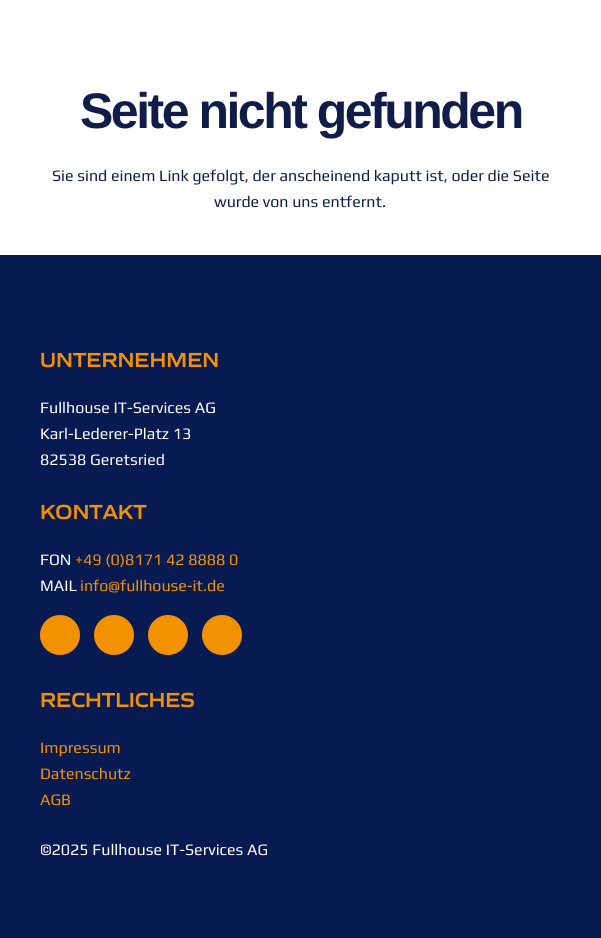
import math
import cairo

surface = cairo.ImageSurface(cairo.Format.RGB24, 601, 938)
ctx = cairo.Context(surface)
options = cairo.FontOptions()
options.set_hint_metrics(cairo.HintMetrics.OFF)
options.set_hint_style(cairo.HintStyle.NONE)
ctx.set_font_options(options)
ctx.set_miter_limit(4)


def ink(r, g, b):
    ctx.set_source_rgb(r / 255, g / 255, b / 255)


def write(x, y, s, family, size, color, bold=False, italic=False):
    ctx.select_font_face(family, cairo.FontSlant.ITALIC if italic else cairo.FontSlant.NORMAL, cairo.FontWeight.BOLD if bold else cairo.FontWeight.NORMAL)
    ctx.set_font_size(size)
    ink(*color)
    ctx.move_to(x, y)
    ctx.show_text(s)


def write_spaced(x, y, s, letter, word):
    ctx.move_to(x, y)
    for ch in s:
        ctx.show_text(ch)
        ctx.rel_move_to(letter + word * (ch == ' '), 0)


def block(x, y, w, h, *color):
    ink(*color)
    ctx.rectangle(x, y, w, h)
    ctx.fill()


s1 = dict(family="Play", size=16, color=(15, 29, 72))
s2 = dict(family="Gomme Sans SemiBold", size=21, color=(243, 146, 0))
s3 = dict(family="Play", size=16, color=(255, 255, 255))
s4 = dict(family="Play", size=16, color=(243, 146, 0))

ink(255, 255, 255)
ctx.paint()
ctx.select_font_face("Liberation Sans", cairo.FontSlant.NORMAL, cairo.FontWeight.BOLD)
ctx.set_font_size(50)
ink(15, 29, 72)
write_spaced(80, 128, "Seite nicht gefunden", -2.5, 0)
write(52, 181, "Sie sind einem Link gefolgt, der anscheinend kaputt ist, oder die Seite", **s1)
write(214, 207, "wurde von uns entfernt.", **s1)
block(0, 255, 601, 683, 7, 26, 82)
write(40, 367, "UNTERNEHMEN", **s2)
write(40, 413, "Fullhouse IT-Services AG", **s3)
write(40, 439, "Karl-Lederer-Platz 13", **s3)
write(40, 465, "82538 Geretsried", **s3)
write(40, 519, "KONTAKT", **s2)
write(40, 565, "FON", **s3)
write(75, 565, "+49 (0)8171 42 8888 0", **s4)
write(40, 591, "MAIL", **s3)
write(80, 591, "info@fullhouse-it.de", **s4)
ctx.new_path()
ctx.arc(60, 635, 20, 0, 2 * math.pi)
ctx.fill()
ctx.arc(114, 635, 20, 0, 2 * math.pi)
ctx.fill()
ctx.arc(168, 635, 20, 0, 2 * math.pi)
ctx.fill()
ctx.arc(222, 635, 20, 0, 2 * math.pi)
ctx.fill()
write(40, 707, "RECHTLICHES", **s2)
write(40, 753, "Impressum", **s4)
write(40, 779, "Datenschutz", **s4)
write(40, 805, "AGB", **s4)
write(40, 855, "©2025 Fullhouse IT-Services AG", **s3)
surface.write_to_png("screenshot.png")
